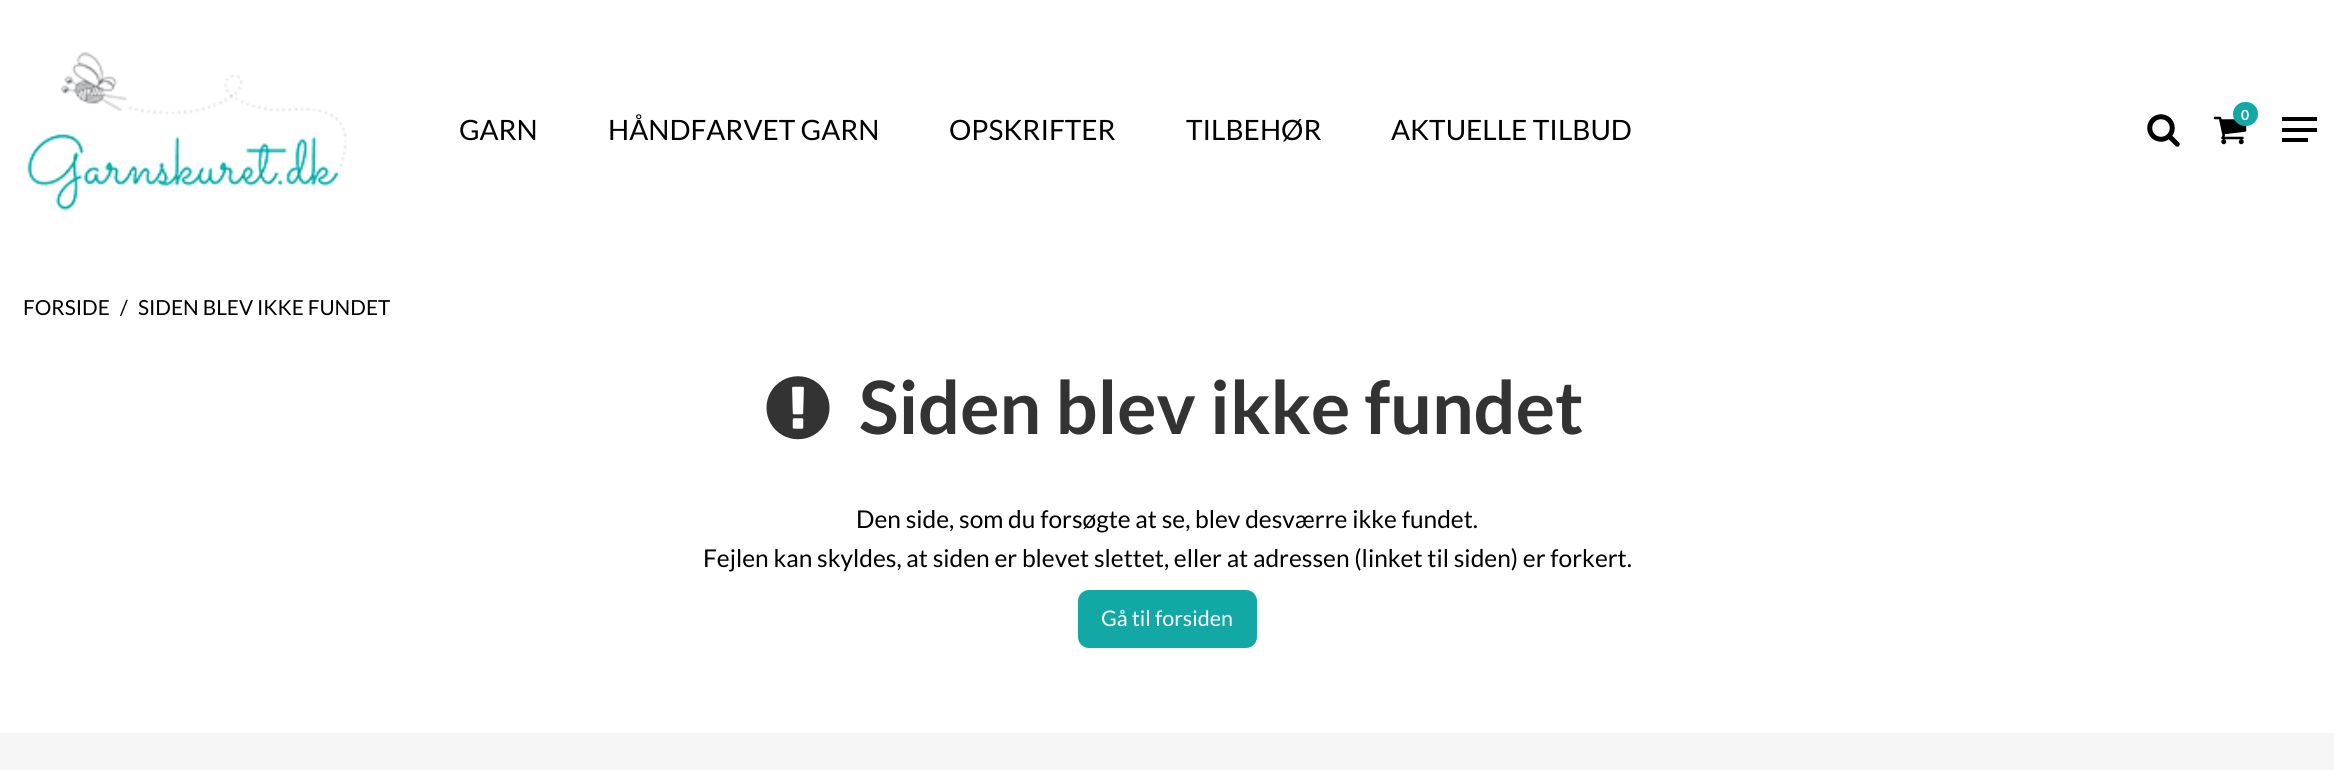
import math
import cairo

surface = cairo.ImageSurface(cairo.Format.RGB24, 2334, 770)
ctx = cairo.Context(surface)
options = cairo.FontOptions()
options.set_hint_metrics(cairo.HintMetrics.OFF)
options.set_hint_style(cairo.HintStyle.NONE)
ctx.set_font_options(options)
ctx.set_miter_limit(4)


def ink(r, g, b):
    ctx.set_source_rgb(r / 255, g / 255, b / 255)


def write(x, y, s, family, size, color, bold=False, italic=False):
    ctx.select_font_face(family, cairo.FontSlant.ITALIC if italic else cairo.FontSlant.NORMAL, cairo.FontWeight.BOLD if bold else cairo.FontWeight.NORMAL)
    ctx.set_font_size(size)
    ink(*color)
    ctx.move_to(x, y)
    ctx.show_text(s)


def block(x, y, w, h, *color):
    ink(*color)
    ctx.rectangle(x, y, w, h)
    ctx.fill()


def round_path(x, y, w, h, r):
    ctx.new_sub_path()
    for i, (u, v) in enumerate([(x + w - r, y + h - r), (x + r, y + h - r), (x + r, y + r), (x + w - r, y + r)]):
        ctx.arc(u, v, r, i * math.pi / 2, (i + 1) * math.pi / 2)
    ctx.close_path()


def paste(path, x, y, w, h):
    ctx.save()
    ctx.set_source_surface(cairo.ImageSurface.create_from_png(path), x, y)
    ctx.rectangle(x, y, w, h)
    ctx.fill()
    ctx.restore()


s1 = dict(family="Lato", size=28, color=(0, 0, 0))
s2 = dict(family="Lato", size=14, color=(255, 255, 255), bold=True)
s3 = dict(family="Lato", size=20.75, color=(0, 0, 0))
s4 = dict(family="Lato", size=73.5, color=(51, 51, 51), bold=True)
s5 = dict(family="Lato", size=24.5, color=(0, 0, 0))
s6 = dict(family="Lato", size=21.5, color=(255, 255, 255))

ink(255, 255, 255)
ctx.paint()
paste("pic1.png", 27, 52, 320, 159)
write(459, 140, "GARN", **s1)
write(608, 140, "HÅNDFARVET GARN", **s1)
write(949, 140, "OPSKRIFTER", **s1)
write(1186, 140, "TILBEHØR", **s1)
write(1391, 140, "AKTUELLE TILBUD", **s1)
paste("pic2.png", 2147, 114, 33, 33)
paste("pic3.png", 2213, 116, 34, 29)
ink(18, 168, 166)
round_path(2233, 102, 25, 24, 12)
ctx.fill()
write(2241, 120, "0", **s2)
block(2282, 117, 35, 4, 0, 0, 0)
block(2282, 128, 35, 4, 0, 0, 0)
block(2282, 138, 26, 4, 0, 0, 0)
write(23, 315, "FORSIDE", **s3)
write(120, 315, "/", **s3)
write(138, 315, "SIDEN BLEV IKKE FUNDET", **s3)
paste("pic4.png", 766, 376, 64, 64)
write(859, 434, "Siden blev ikke fundet", **s4)
write(856, 528, "Den side, som du forsøgte at se, blev desværre ikke fundet.", **s5)
write(703, 567, "Fejlen kan skyldes, at siden er blevet slettet, eller at adressen (linket til siden) er forkert.", **s5)
ink(18, 168, 166)
round_path(1079, 591, 177, 56, 10)
ctx.fill_preserve()
ctx.stroke()
write(1101, 626, "Gå til forsiden", **s6)
block(0, 733, 2334, 37, 245, 245, 245)
surface.write_to_png("screenshot.png")
